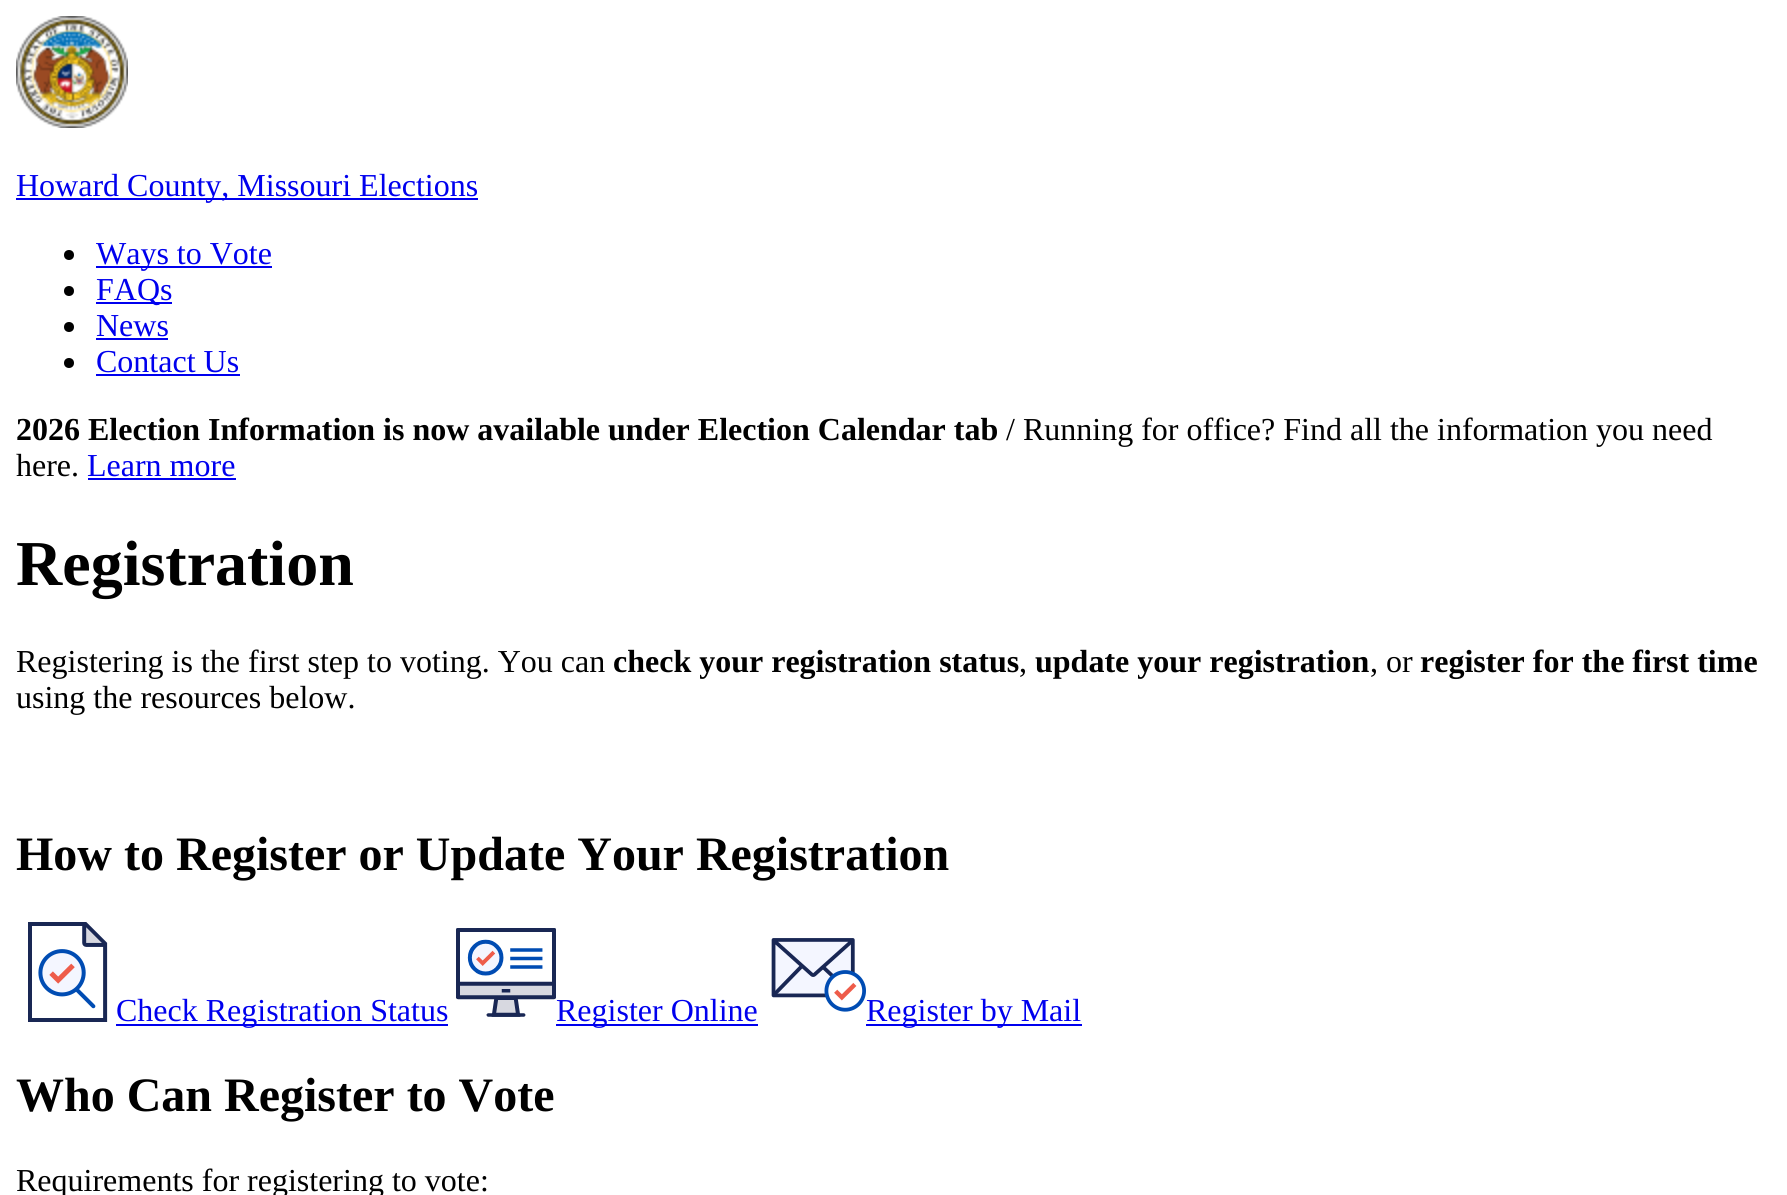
import math
import cairo

surface = cairo.ImageSurface(cairo.Format.RGB24, 1787, 1195)
ctx = cairo.Context(surface)
options = cairo.FontOptions()
options.set_hint_metrics(cairo.HintMetrics.OFF)
options.set_hint_style(cairo.HintStyle.NONE)
ctx.set_font_options(options)
ctx.set_miter_limit(4)


def ink(r, g, b):
    ctx.set_source_rgb(r / 255, g / 255, b / 255)


def write(x, y, s, family, size, color, bold=False, italic=False):
    ctx.select_font_face(family, cairo.FontSlant.ITALIC if italic else cairo.FontSlant.NORMAL, cairo.FontWeight.BOLD if bold else cairo.FontWeight.NORMAL)
    ctx.set_font_size(size)
    ink(*color)
    ctx.move_to(x, y)
    ctx.show_text(s)


def block(x, y, w, h, *color):
    ink(*color)
    ctx.rectangle(x, y, w, h)
    ctx.fill()


def paste(path, x, y, w, h):
    ctx.save()
    ctx.set_source_surface(cairo.ImageSurface.create_from_png(path), x, y)
    ctx.rectangle(x, y, w, h)
    ctx.fill()
    ctx.restore()


s1 = dict(family="Liberation Serif", size=32, color=(0, 0, 238))
s2 = dict(family="Liberation Serif", size=32, color=(0, 0, 0), bold=True)
s3 = dict(family="Liberation Serif", size=32, color=(0, 0, 0))
s4 = dict(family="Liberation Serif", size=64, color=(0, 0, 0), bold=True)
s5 = dict(family="Liberation Serif", size=48, color=(0, 0, 0), bold=True)

ink(255, 255, 255)
ctx.paint()
paste("pic1.png", 16, 16, 112, 112)
block(16, 198, 462, 2, 0, 0, 238)
write(16, 196, "Howard County, Missouri Elections", **s1)
ink(0, 0, 0)
ctx.new_path()
ctx.arc(69, 255, 5, 0, 2 * math.pi)
ctx.fill()
block(96, 266, 176, 2, 0, 0, 238)
write(96, 264, "Ways to Vote", **s1)
ink(0, 0, 0)
ctx.new_path()
ctx.arc(69, 291, 5, 0, 2 * math.pi)
ctx.fill()
block(96, 302, 76, 2, 0, 0, 238)
write(96, 300, "FAQs", **s1)
ink(0, 0, 0)
ctx.new_path()
ctx.arc(69, 327, 5, 0, 2 * math.pi)
ctx.fill()
write(96, 336, "News", **s1)
block(96, 338, 72, 2, 0, 0, 238)
ink(0, 0, 0)
ctx.new_path()
ctx.arc(69, 363, 5, 0, 2 * math.pi)
ctx.fill()
write(96, 372, "Contact Us", **s1)
block(96, 374, 144, 2, 0, 0, 238)
write(16, 440, "2026 Election Information is now available under Election Calendar tab", **s2)
write(1006, 440, "/ Running for office? Find all the information you need", **s3)
write(16, 476, "here.", **s3)
write(87, 476, "Learn more", **s1)
block(88, 478, 148, 2, 0, 0, 238)
write(16, 585, "Registration", **s4)
write(16, 672, "Registering is the first step to voting. You can", **s3)
write(613, 672, "check your registration status", **s2)
write(1019, 672, ",", **s3)
write(1035, 672, "update your registration", **s2)
write(1370, 672, ", or", **s3)
write(1420, 672, "register for the first time", **s2)
write(16, 708, "using the resources below.", **s3)
write(16, 870, "How to Register or Update Your Registration", **s5)
paste("pic2.png", 28, 922, 80, 100)
block(116, 1024, 332, 2, 0, 0, 238)
write(116, 1021, "Check Registration Status", **s1)
paste("pic3.png", 456, 928, 100, 89)
block(556, 1024, 202, 2, 0, 0, 238)
write(556, 1021, "Register Online", **s1)
paste("pic4.png", 771, 938, 95, 74)
block(866, 1024, 216, 2, 0, 0, 238)
write(866, 1021, "Register by Mail", **s1)
write(16, 1111, "Who Can Register to Vote", **s5)
write(16, 1191, "Requirements for registering to vote:", **s3)
surface.write_to_png("screenshot.png")
